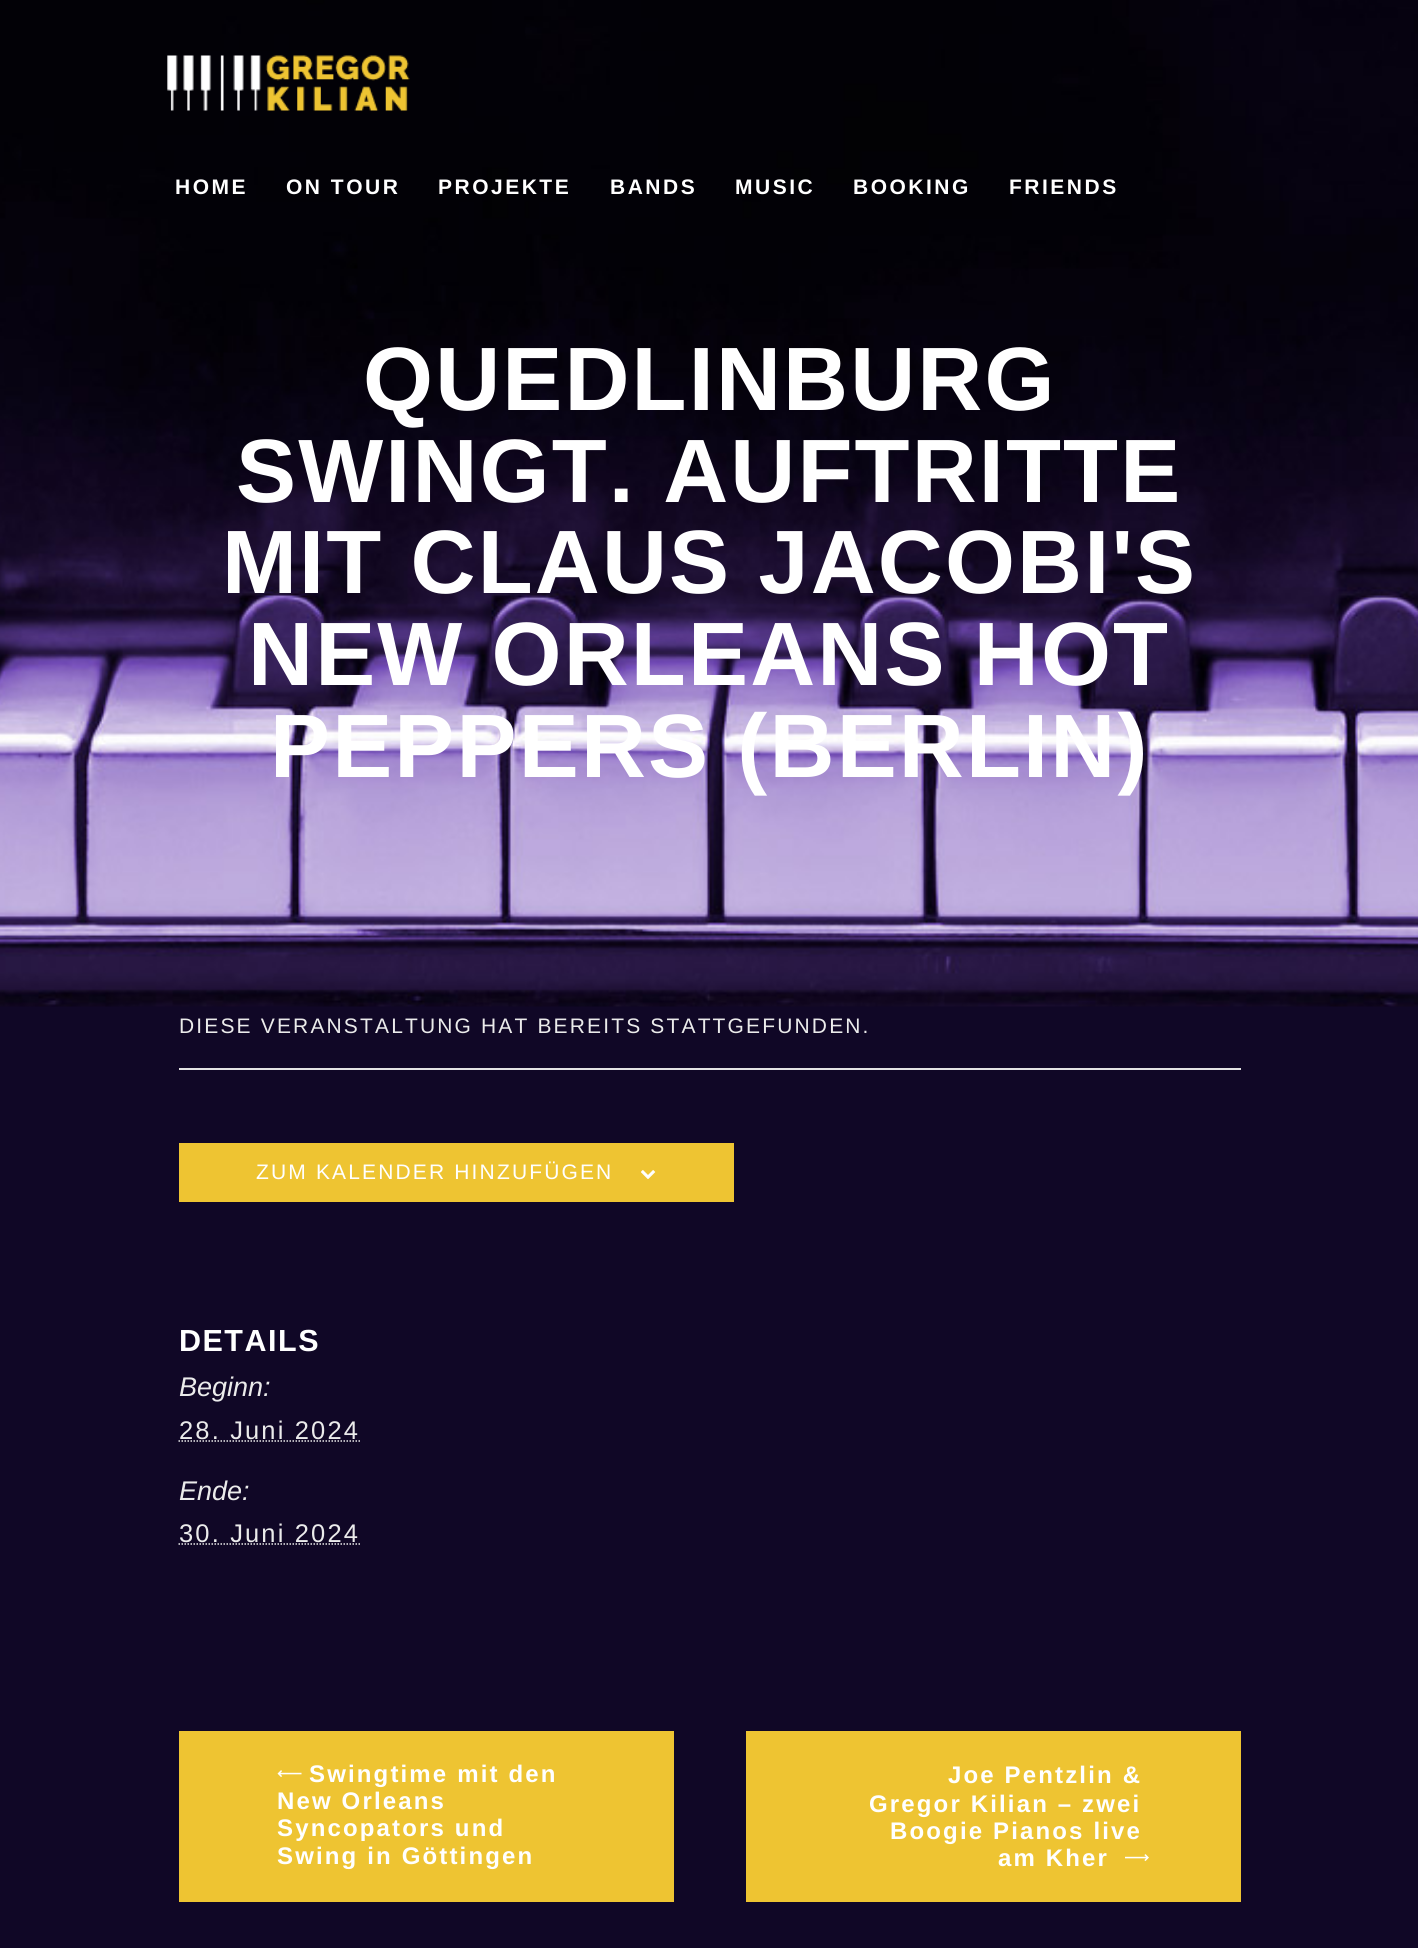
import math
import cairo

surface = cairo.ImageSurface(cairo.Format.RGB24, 1418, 1948)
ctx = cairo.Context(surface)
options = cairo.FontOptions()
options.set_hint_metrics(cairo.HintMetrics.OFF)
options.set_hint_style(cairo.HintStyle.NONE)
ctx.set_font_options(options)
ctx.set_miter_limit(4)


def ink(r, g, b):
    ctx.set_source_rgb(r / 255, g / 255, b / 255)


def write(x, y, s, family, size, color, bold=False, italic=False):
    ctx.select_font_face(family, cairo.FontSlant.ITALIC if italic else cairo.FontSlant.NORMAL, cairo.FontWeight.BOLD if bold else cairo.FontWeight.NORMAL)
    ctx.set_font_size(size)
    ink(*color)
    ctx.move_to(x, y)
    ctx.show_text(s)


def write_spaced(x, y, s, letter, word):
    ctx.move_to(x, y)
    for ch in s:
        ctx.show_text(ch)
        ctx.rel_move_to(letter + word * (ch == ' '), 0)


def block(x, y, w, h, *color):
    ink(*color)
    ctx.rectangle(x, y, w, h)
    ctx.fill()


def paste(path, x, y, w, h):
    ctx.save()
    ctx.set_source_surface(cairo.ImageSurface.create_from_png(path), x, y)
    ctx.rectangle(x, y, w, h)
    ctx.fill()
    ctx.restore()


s1 = dict(family="Liberation Sans", size=27, color=(235, 235, 235), italic=True)

ink(16, 7, 38)
ctx.paint()
paste("pic1.png", 0, 0, 1418, 1007)
paste("pic2.png", 167, 55, 243, 56)
ctx.select_font_face("Liberation Sans", cairo.FontSlant.NORMAL, cairo.FontWeight.BOLD)
ctx.set_font_size(21)
ink(255, 255, 255)
write_spaced(175, 194, "HOME", 2.5, 0)
write_spaced(286, 194, "ON TOUR", 2.5, 0)
write_spaced(438, 194, "PROJEKTE", 2.5, 0)
write_spaced(610, 194, "BANDS", 2.5, 0)
write_spaced(735, 194, "MUSIC", 2.5, 0)
write_spaced(853, 194, "BOOKING", 2.5, 0)
write_spaced(1009, 194, "FRIENDS", 2.5, 0)
ctx.set_font_size(90)
write_spaced(363, 410, "QUEDLINBURG", 2.15, 0)
write_spaced(236, 502, "SWINGT. AUFTRITTE", 2.15, 0)
write_spaced(222, 593, "MIT CLAUS JACOBI'S", 2.15, 0)
write_spaced(248, 685, "NEW ORLEANS HOT", 2.15, 0)
write_spaced(270, 777, "PEPPERS (BERLIN)", 2.15, 0)
block(179, 1068, 1062, 2, 228, 228, 228)
ctx.select_font_face("Liberation Sans")
ctx.set_font_size(21)
ink(235, 235, 235)
write_spaced(179, 1033, "DIESE VERANSTALTUNG HAT BEREITS STATTGEFUNDEN.", 2.15, 0)
block(179, 1143, 555, 59, 238, 196, 50)
ink(255, 255, 255)
write_spaced(256, 1179, "ZUM KALENDER HINZUFÜGEN", 2.15, 0)
paste("pic3.png", 641, 1170, 15, 9)
ctx.select_font_face("Liberation Sans", cairo.FontSlant.NORMAL, cairo.FontWeight.BOLD)
ctx.set_font_size(30.5)
write_spaced(179, 1351, "DETAILS", 1.5, 0)
write(179, 1396, "Beginn:", **s1)
ctx.select_font_face("Liberation Sans")
ctx.set_font_size(25.5)
write_spaced(179, 1439, "28. Juni 2024", 2.15, 0)
ctx.new_path()
ctx.move_to(178.5, 1441)
ctx.line_to(360, 1441)
ctx.set_line_width(1.5)
ctx.set_dash([1.5, 1.5])
ctx.stroke()
write(179, 1500, "Ende:", **s1)
ctx.select_font_face("Liberation Sans")
ctx.set_font_size(25.5)
write_spaced(179, 1542, "30. Juni 2024", 2.15, 0)
ctx.new_path()
ctx.move_to(178.5, 1544)
ctx.line_to(360, 1544)
ctx.stroke()
block(179, 1731, 495, 171, 238, 196, 50)
paste("pic4.png", 277, 1770, 25, 7)
ctx.select_font_face("Liberation Sans", cairo.FontSlant.NORMAL, cairo.FontWeight.BOLD)
ctx.set_font_size(24)
ink(255, 255, 255)
write_spaced(309, 1782, "Swingtime mit den", 2.15, 0)
write_spaced(277, 1809, "New Orleans", 2.15, 0)
write_spaced(277, 1836, "Syncopators und", 2.15, 0)
write_spaced(277, 1864, "Swing in Göttingen", 2.15, 0)
block(746, 1731, 495, 171, 238, 196, 50)
ink(255, 255, 255)
write_spaced(948, 1783, "Joe Pentzlin &", 2.15, 0)
write_spaced(869, 1812, "Gregor Kilian – zwei", 2.15, 0)
write_spaced(890, 1839, "Boogie Pianos live", 2.15, 0)
write_spaced(998, 1866, "am Kher", 2.15, 0)
paste("pic5.png", 1125, 1854, 24, 8)
surface.write_to_png("screenshot.png")
